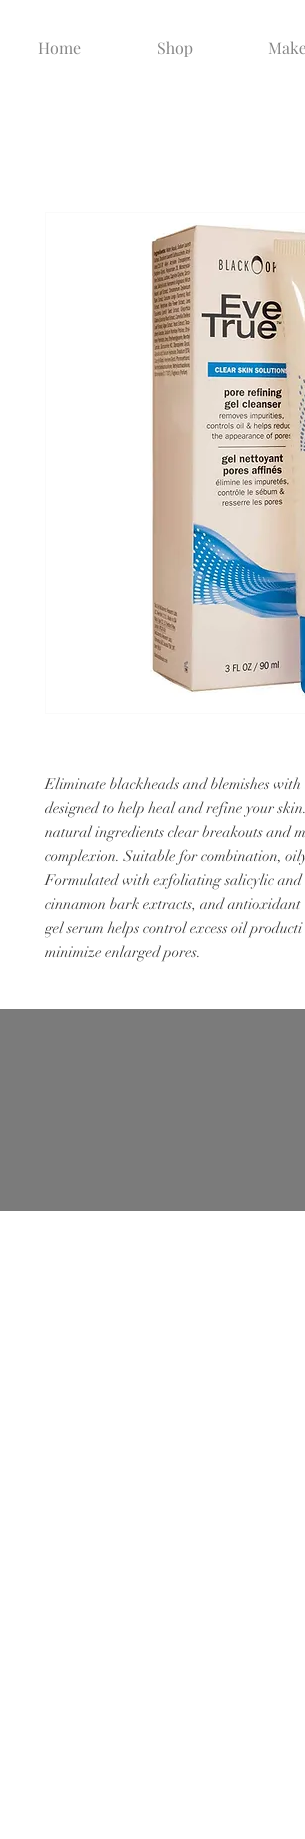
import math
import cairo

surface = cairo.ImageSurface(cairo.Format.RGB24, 305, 1839)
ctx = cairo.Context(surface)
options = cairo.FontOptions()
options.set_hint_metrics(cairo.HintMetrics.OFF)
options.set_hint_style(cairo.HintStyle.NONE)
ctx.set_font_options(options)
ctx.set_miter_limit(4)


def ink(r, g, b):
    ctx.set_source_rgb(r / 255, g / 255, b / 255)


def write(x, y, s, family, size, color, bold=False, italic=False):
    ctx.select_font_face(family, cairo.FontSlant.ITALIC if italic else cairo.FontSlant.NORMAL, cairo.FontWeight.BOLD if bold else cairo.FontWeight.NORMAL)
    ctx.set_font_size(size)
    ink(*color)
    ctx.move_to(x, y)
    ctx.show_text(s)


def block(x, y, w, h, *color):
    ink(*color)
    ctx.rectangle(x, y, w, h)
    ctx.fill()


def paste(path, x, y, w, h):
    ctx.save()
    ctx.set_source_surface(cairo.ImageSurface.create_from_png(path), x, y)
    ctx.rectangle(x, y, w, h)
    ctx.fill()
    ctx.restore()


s1 = dict(family="Playfair Display", size=16, color=(133, 133, 133))
s2 = dict(family="didot", size=15, color=(54, 54, 54))

ink(255, 255, 255)
ctx.paint()
write(38, 54, "Home", **s1)
write(157, 54, "Shop", **s1)
write(268, 54, "Make", **s1)
ctx.rectangle(45.5, 212.5, 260, 501)
ink(250, 250, 250)
ctx.set_line_width(1)
ctx.stroke()
paste("pic1.png", 150, 223, 155, 476)
write(45, 789, "Eliminate blackheads and blemishes with", **s2)
write(45, 813, "designed to help heal and refine your skin.", **s2)
write(45, 837, "natural ingredients clear breakouts and m", **s2)
write(45, 861, "complexion. Suitable for combination, oily", **s2)
write(45, 885, "Formulated with exfoliating salicylic and", **s2)
write(45, 909, "cinnamon bark extracts, and antioxidant", **s2)
ctx.save()
ctx.rectangle(45, 772, 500, 192)
ctx.clip()
write(45, 933, "gel serum helps control excess oil producti", **s2)
ctx.restore()
write(45, 957, "minimize enlarged pores.", **s2)
block(0, 1009, 305, 202, 123, 123, 123)
surface.write_to_png("screenshot.png")
